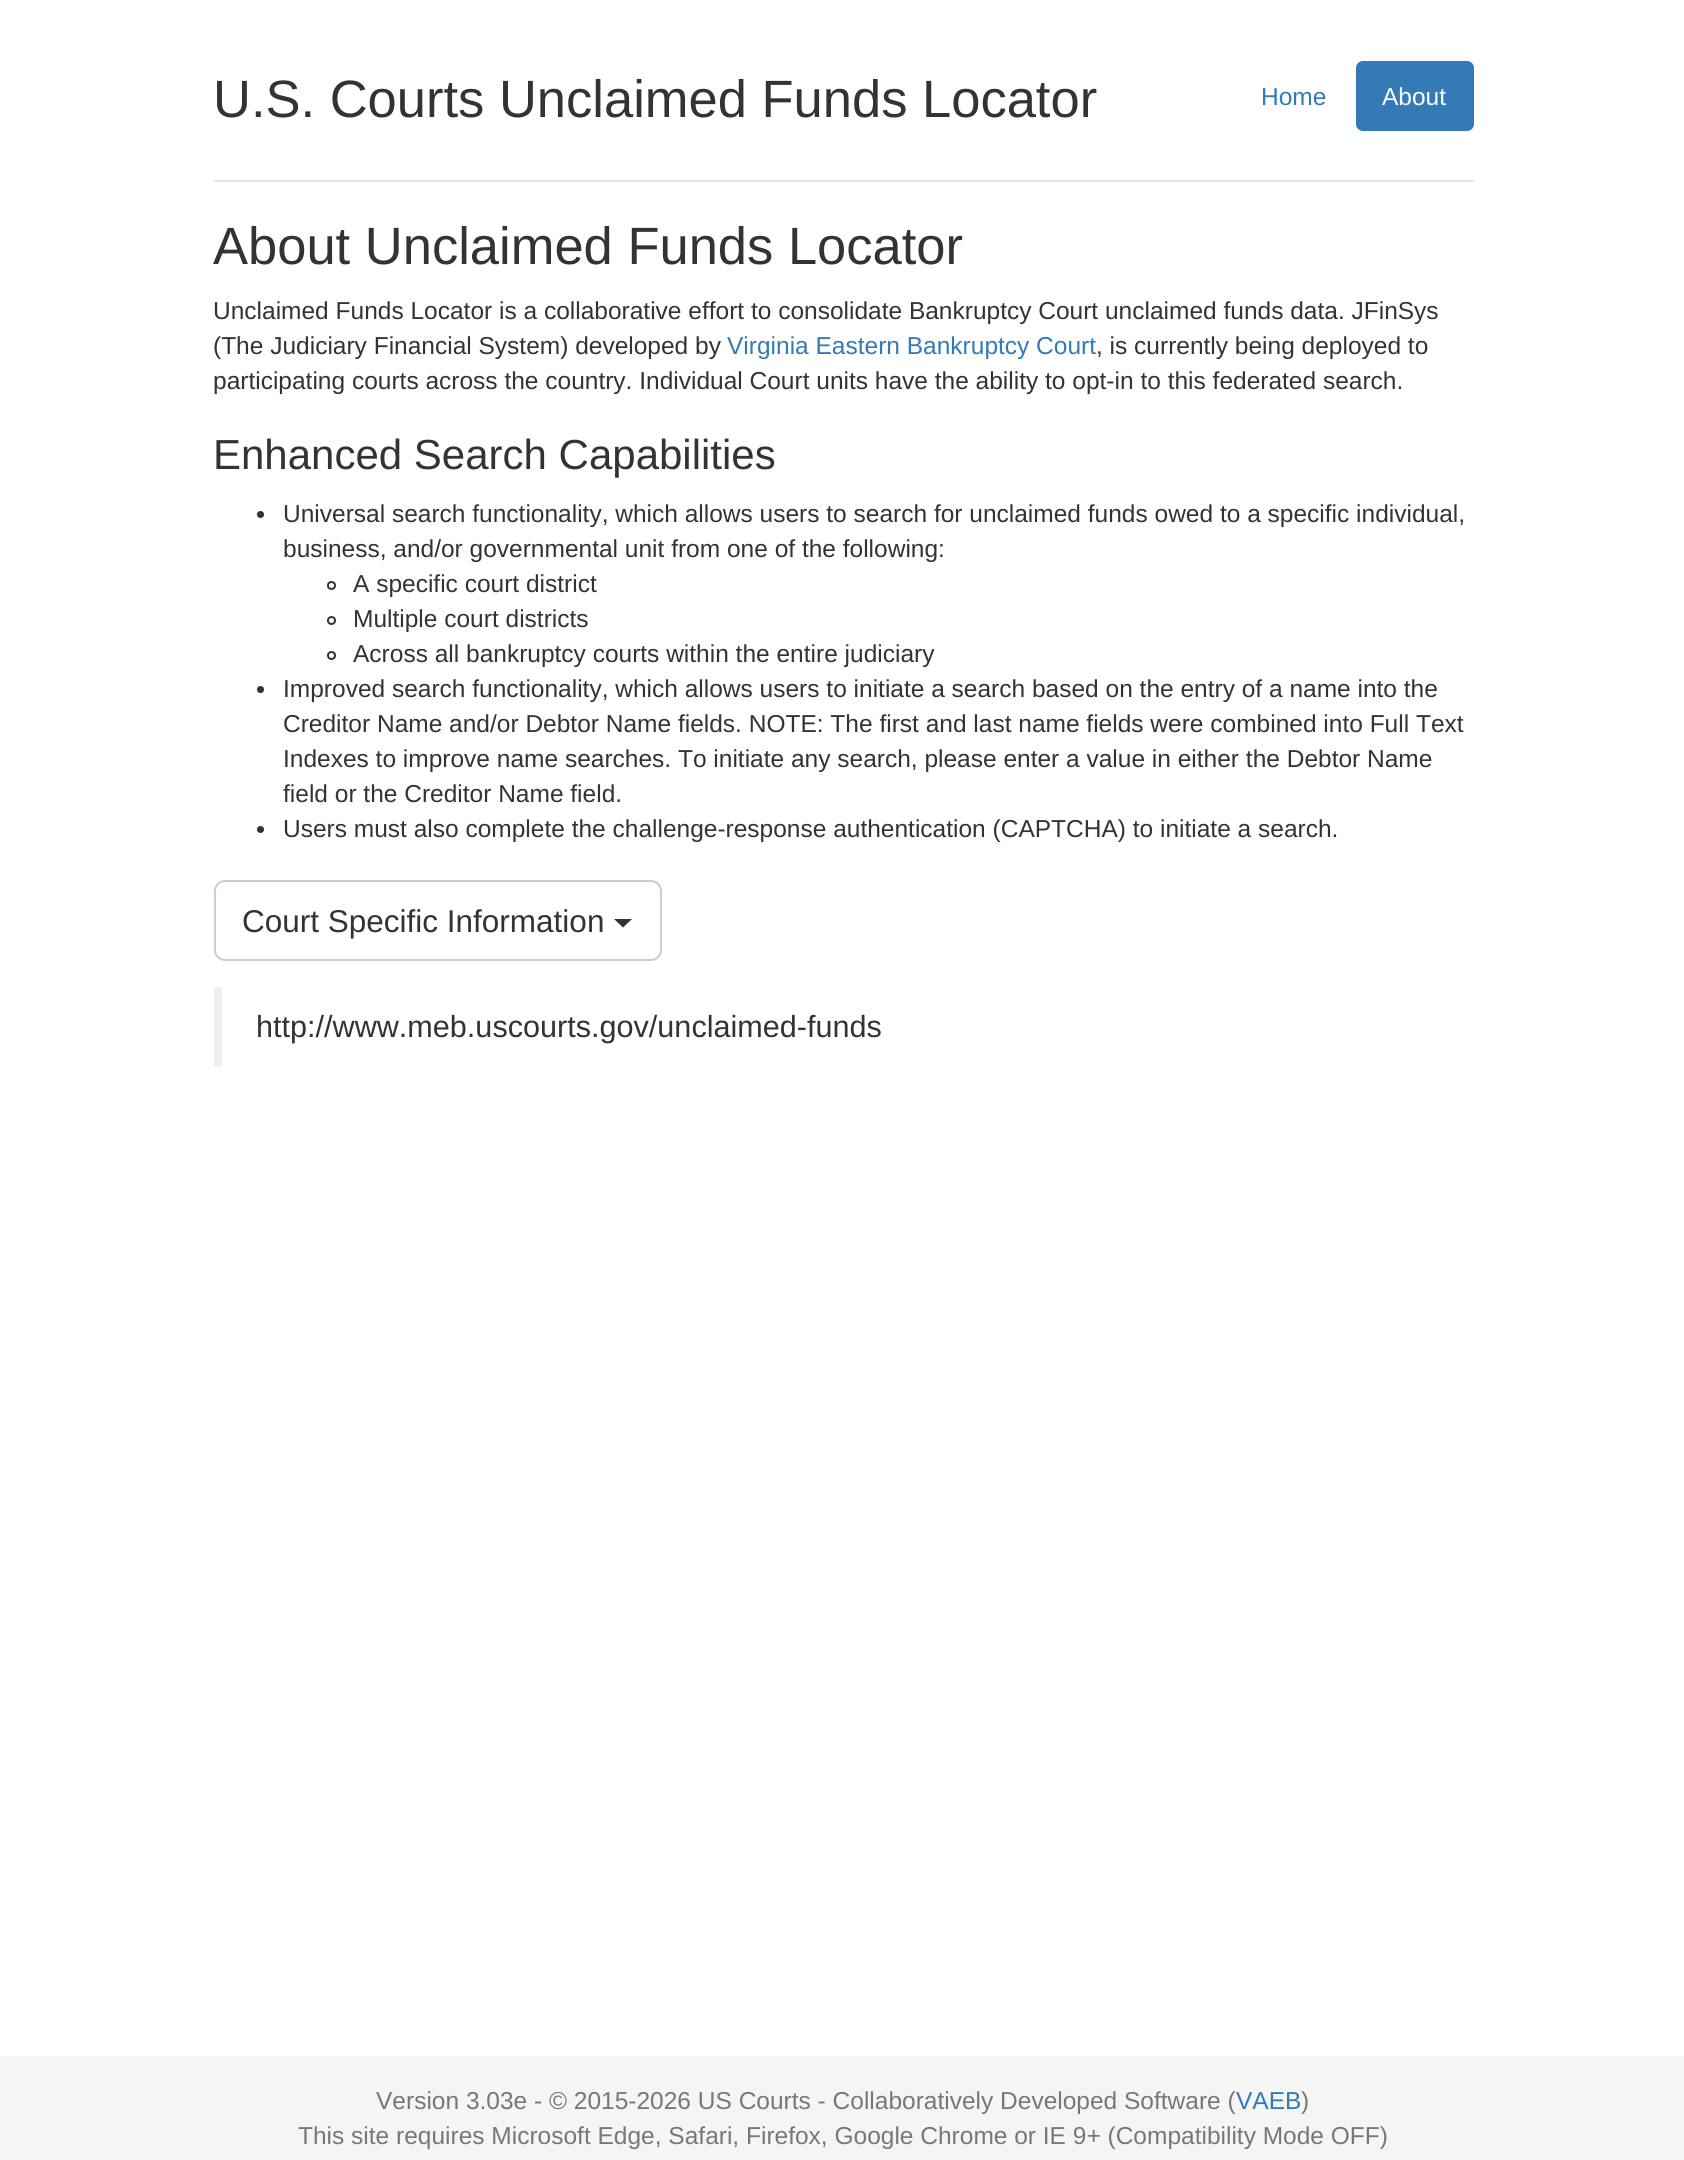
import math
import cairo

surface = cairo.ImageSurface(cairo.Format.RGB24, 1684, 2160)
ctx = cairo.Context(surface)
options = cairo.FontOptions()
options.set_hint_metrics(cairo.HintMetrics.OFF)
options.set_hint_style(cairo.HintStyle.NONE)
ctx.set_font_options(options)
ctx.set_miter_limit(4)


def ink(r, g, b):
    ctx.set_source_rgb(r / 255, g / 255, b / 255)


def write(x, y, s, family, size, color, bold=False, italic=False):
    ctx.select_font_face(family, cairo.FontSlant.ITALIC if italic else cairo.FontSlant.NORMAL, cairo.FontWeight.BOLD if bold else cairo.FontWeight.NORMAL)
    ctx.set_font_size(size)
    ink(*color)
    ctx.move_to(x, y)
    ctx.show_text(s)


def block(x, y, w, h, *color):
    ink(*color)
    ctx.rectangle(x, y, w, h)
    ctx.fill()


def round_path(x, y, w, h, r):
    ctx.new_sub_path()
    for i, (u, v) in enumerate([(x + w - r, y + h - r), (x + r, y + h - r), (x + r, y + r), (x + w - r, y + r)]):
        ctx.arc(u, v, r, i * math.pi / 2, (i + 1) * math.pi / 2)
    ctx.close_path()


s1 = dict(family="Liberation Sans", size=52.5, color=(51, 51, 51))
s2 = dict(family="Liberation Sans", size=24.5, color=(51, 122, 183))
s3 = dict(family="Liberation Sans", size=24.5, color=(255, 255, 255))
s4 = dict(family="Liberation Sans", size=24.5, color=(51, 51, 51))
s5 = dict(family="Liberation Sans", size=42, color=(51, 51, 51))
s6 = dict(family="Liberation Sans", size=31.5, color=(51, 51, 51))
s7 = dict(family="Liberation Sans", size=30.6, color=(51, 51, 51))
s8 = dict(family="Liberation Sans", size=24.5, color=(119, 119, 119))

ink(255, 255, 255)
ctx.paint()
block(214, 180, 1260, 2, 229, 229, 229)
write(213, 117, "U.S. Courts Unclaimed Funds Locator", **s1)
write(1261, 105, "Home", **s2)
round_path(1356, 61, 118, 70, 7)
ctx.fill()
write(1382, 105, "About", **s3)
write(213, 264, "About Unclaimed Funds Locator", **s1)
write(213, 319, "Unclaimed Funds Locator is a collaborative effort to consolidate Bankruptcy Court unclaimed funds data. JFinSys", **s4)
write(213, 354, "(The Judiciary Financial System) developed by", **s4)
write(727, 354, "Virginia Eastern Bankruptcy Court", **s2)
write(1096, 354, ", is currently being deployed to", **s4)
write(213, 389, "participating courts across the country. Individual Court units have the ability to opt-in to this federated search.", **s4)
write(213, 469, "Enhanced Search Capabilities", **s5)
ctx.new_path()
ctx.arc(260.5, 514.5, 3.5, 0, 2 * math.pi)
ctx.fill()
write(283, 522, "Universal search functionality, which allows users to search for unclaimed funds owed to a specific individual,", **s4)
write(283, 557, "business, and/or governmental unit from one of the following:", **s4)
ctx.new_path()
ctx.arc(331.5, 585.5, 3.5, 0, 2 * math.pi)
ctx.stroke()
write(353, 592, "A specific court district", **s4)
ctx.new_path()
ctx.arc(331.5, 620.5, 3.5, 0, 2 * math.pi)
ctx.stroke()
write(353, 627, "Multiple court districts", **s4)
ctx.new_path()
ctx.arc(331.5, 655.5, 3.5, 0, 2 * math.pi)
ctx.stroke()
write(353, 662, "Across all bankruptcy courts within the entire judiciary", **s4)
ctx.new_path()
ctx.arc(260.5, 689.5, 3.5, 0, 2 * math.pi)
ctx.fill()
write(283, 697, "Improved search functionality, which allows users to initiate a search based on the entry of a name into the", **s4)
write(283, 732, "Creditor Name and/or Debtor Name fields. NOTE: The first and last name fields were combined into Full Text", **s4)
write(283, 767, "Indexes to improve name searches. To initiate any search, please enter a value in either the Debtor Name", **s4)
write(283, 802, "field or the Creditor Name field.", **s4)
ctx.new_path()
ctx.arc(260.5, 829.5, 3.5, 0, 2 * math.pi)
ctx.fill()
write(283, 837, "Users must also complete the challenge-response authentication (CAPTCHA) to initiate a search.", **s4)
round_path(215, 881, 446, 79, 10)
ink(204, 204, 204)
ctx.stroke()
write(242, 932, "Court Specific Information", **s6)
ctx.new_path()
ctx.move_to(614, 919)
ctx.line_to(632, 919)
ctx.line_to(623, 927.5)
ctx.close_path()
ctx.fill()
block(214, 987, 8, 79, 238, 238, 238)
write(256, 1037, "http://www.meb.uscourts.gov/unclaimed-funds", **s7)
block(0, 2056, 1684, 104, 245, 245, 245)
write(376, 2109, "Version 3.03e - © 2015-2026 US Courts - Collaboratively Developed Software (", **s8)
write(1236, 2109, "VAEB", **s2)
write(1301, 2109, ")", **s8)
write(298, 2144, "This site requires Microsoft Edge, Safari, Firefox, Google Chrome or IE 9+ (Compatibility Mode OFF)", **s8)
surface.write_to_png("screenshot.png")
